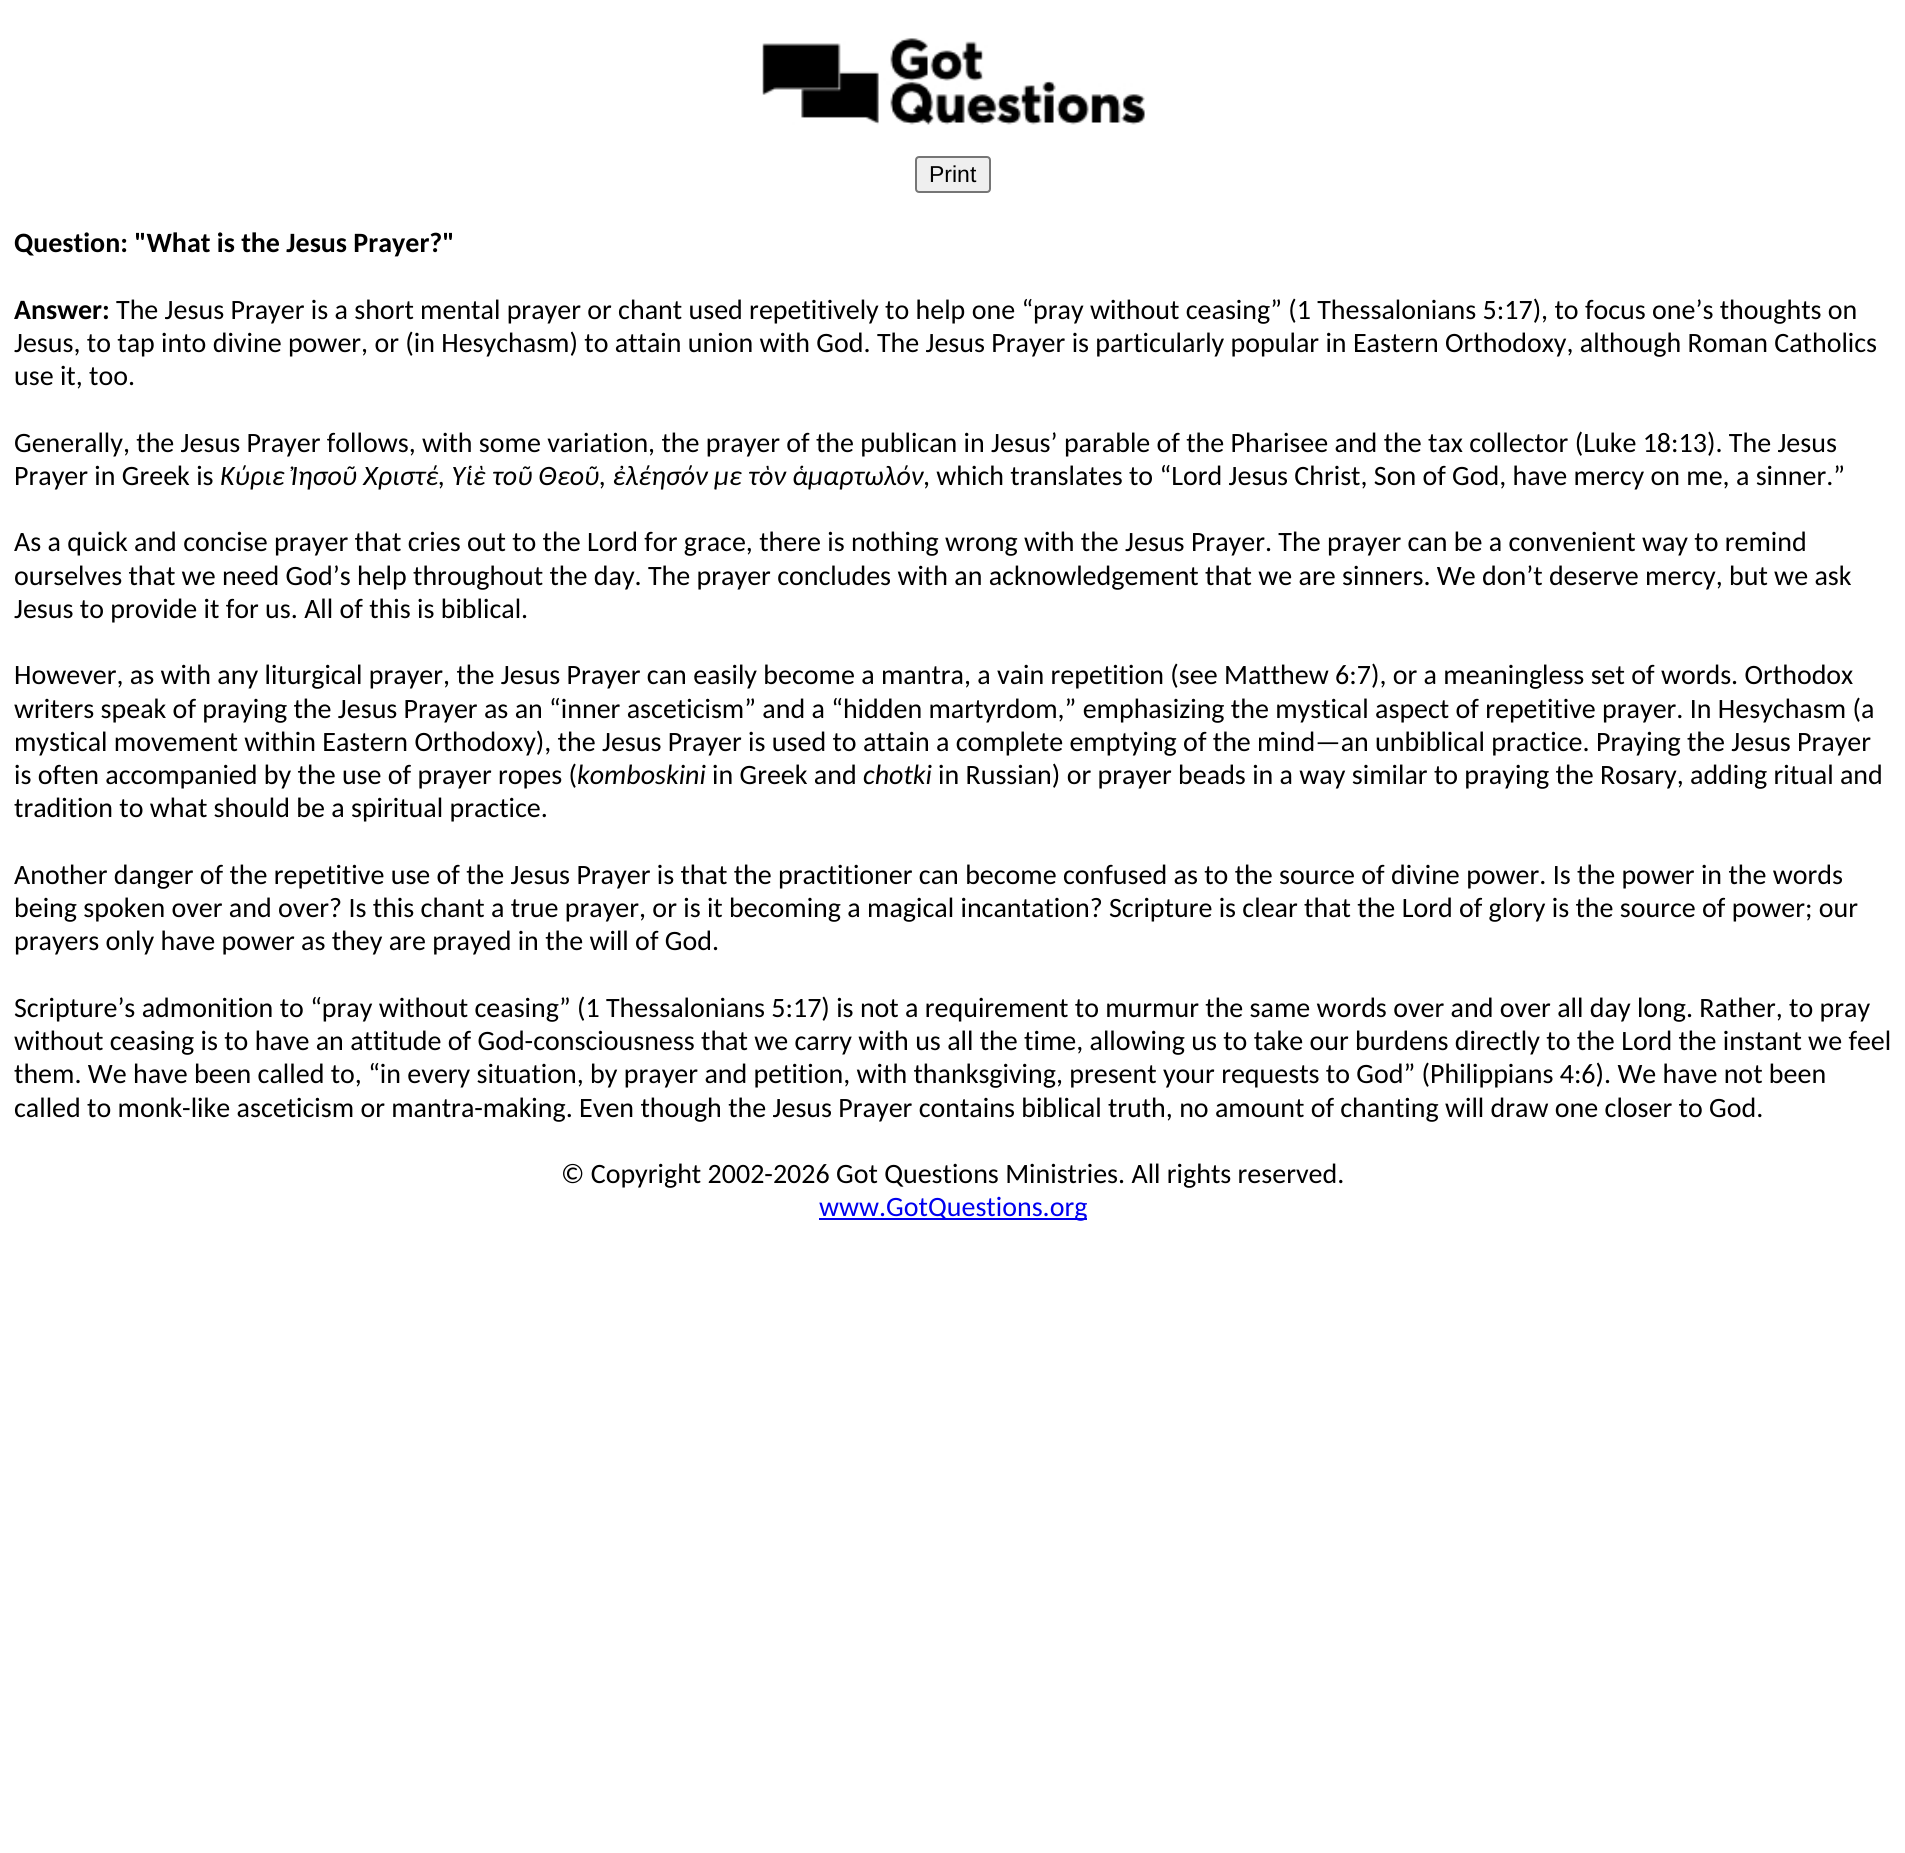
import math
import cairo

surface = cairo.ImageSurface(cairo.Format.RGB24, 1905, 1853)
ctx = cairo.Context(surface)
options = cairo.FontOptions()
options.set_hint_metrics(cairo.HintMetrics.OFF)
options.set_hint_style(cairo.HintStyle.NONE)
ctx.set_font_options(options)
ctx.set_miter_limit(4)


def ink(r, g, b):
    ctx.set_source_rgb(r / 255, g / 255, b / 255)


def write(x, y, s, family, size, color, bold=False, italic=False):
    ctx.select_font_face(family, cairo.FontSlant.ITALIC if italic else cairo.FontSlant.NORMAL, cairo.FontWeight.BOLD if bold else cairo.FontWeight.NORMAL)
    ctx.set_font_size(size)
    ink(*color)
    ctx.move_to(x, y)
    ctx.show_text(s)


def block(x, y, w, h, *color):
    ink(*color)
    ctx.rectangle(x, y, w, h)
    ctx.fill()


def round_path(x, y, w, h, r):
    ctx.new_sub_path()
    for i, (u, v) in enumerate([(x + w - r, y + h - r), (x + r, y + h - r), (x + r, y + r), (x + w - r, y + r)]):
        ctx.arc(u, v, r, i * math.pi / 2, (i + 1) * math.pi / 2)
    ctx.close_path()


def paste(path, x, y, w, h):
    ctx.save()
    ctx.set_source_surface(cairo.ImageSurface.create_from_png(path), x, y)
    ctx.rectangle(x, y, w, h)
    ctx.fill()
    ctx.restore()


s1 = dict(family="Liberation Sans", size=23, color=(0, 0, 0))
s2 = dict(family="Carlito", size=28, color=(0, 0, 0), bold=True)
s3 = dict(family="Carlito", size=28, color=(0, 0, 0))
s4 = dict(family="Carlito", size=28, color=(0, 0, 0), italic=True)
s5 = dict(family="Carlito", size=28, color=(0, 0, 238))

ink(255, 255, 255)
ctx.paint()
paste("pic1.png", 762, 38, 383, 87)
ink(239, 239, 239)
round_path(916, 157, 74, 35, 3)
ctx.fill_preserve()
ink(118, 118, 118)
ctx.stroke()
write(929, 182, "Print", **s1)
write(14, 252, "Question: \"What is the Jesus Prayer?\"", **s2)
write(14, 319, "Answer:", **s2)
write(116, 319, "The Jesus Prayer is a short mental prayer or chant used repetitively to help one “pray without ceasing” (1 Thessalonians 5:17), to focus one’s thoughts on", **s3)
write(14, 352, "Jesus, to tap into divine power, or (in Hesychasm) to attain union with God. The Jesus Prayer is particularly popular in Eastern Orthodoxy, although Roman Catholics", **s3)
write(14, 385, "use it, too.", **s3)
write(14, 452, "Generally, the Jesus Prayer follows, with some variation, the prayer of the publican in Jesus’ parable of the Pharisee and the tax collector (Luke 18:13). The Jesus", **s3)
write(14, 485, "Prayer in Greek is", **s3)
write(220, 485, "Κύριε Ἰησοῦ Χριστέ, Υἱὲ τοῦ Θεοῦ, ἐλέησόν με τὸν ἁμαρτωλόν", **s4)
write(923, 485, ", which translates to “Lord Jesus Christ, Son of God, have mercy on me, a sinner.”", **s3)
write(14, 551, "As a quick and concise prayer that cries out to the Lord for grace, there is nothing wrong with the Jesus Prayer. The prayer can be a convenient way to remind", **s3)
write(14, 585, "ourselves that we need God’s help throughout the day. The prayer concludes with an acknowledgement that we are sinners. We don’t deserve mercy, but we ask", **s3)
write(14, 618, "Jesus to provide it for us. All of this is biblical.", **s3)
write(14, 684, "However, as with any liturgical prayer, the Jesus Prayer can easily become a mantra, a vain repetition (see Matthew 6:7), or a meaningless set of words. Orthodox", **s3)
write(14, 718, "writers speak of praying the Jesus Prayer as an “inner asceticism” and a “hidden martyrdom,” emphasizing the mystical aspect of repetitive prayer. In Hesychasm (a", **s3)
write(14, 751, "mystical movement within Eastern Orthodoxy), the Jesus Prayer is used to attain a complete emptying of the mind—an unbiblical practice. Praying the Jesus Prayer", **s3)
write(14, 784, "is often accompanied by the use of prayer ropes (", **s3)
write(577, 784, "komboskini", **s4)
write(712, 784, "in Greek and", **s3)
write(863, 784, "chotki", **s4)
write(938, 784, "in Russian) or prayer beads in a way similar to praying the Rosary, adding ritual and", **s3)
write(14, 817, "tradition to what should be a spiritual practice.", **s3)
write(14, 884, "Another danger of the repetitive use of the Jesus Prayer is that the practitioner can become confused as to the source of divine power. Is the power in the words", **s3)
write(14, 917, "being spoken over and over? Is this chant a true prayer, or is it becoming a magical incantation? Scripture is clear that the Lord of glory is the source of power; our", **s3)
write(14, 950, "prayers only have power as they are prayed in the will of God.", **s3)
write(14, 1017, "Scripture’s admonition to “pray without ceasing” (1 Thessalonians 5:17) is not a requirement to murmur the same words over and over all day long. Rather, to pray", **s3)
write(14, 1050, "without ceasing is to have an attitude of God-consciousness that we carry with us all the time, allowing us to take our burdens directly to the Lord the instant we feel", **s3)
write(14, 1083, "them. We have been called to, “in every situation, by prayer and petition, with thanksgiving, present your requests to God” (Philippians 4:6). We have not been", **s3)
write(14, 1117, "called to monk-like asceticism or mantra-making. Even though the Jesus Prayer contains biblical truth, no amount of chanting will draw one closer to God.", **s3)
write(561, 1183, "© Copyright 2002-2026 Got Questions Ministries. All rights reserved.", **s3)
block(819, 1218, 268, 2, 0, 0, 238)
write(819, 1216, "www.GotQuestions.org", **s5)
surface.write_to_png("screenshot.png")
